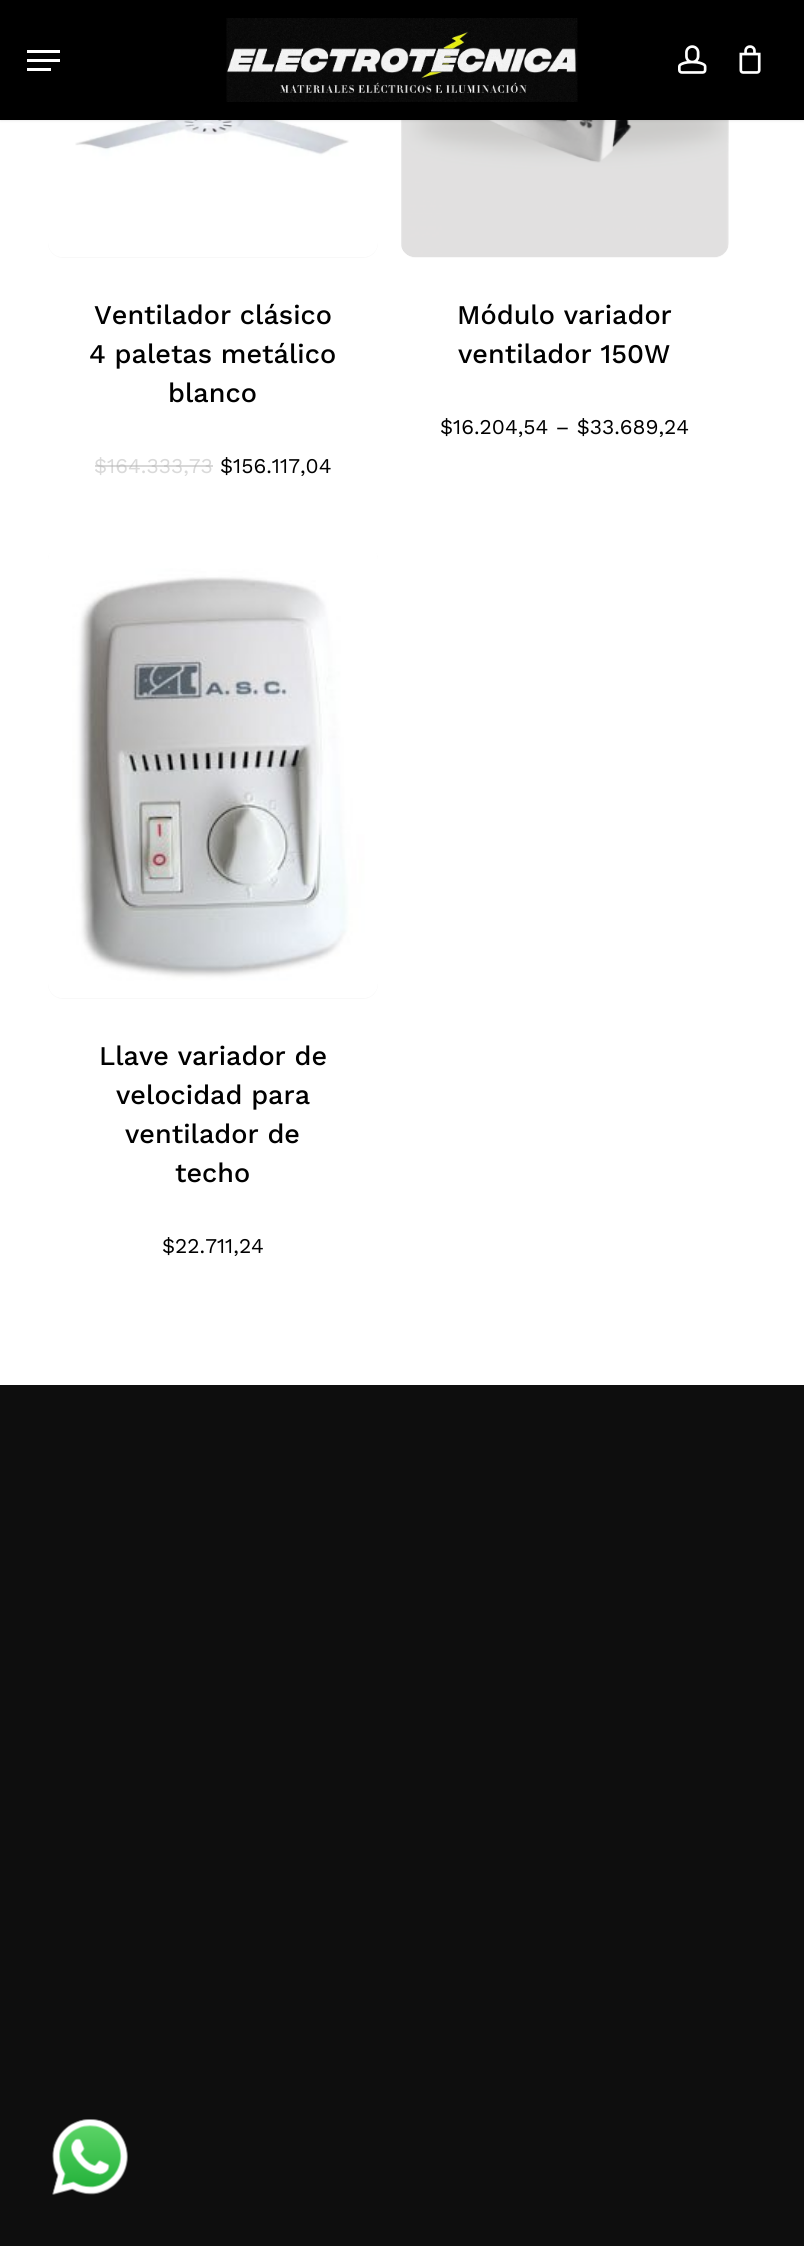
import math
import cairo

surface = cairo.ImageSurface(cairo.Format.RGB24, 804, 2246)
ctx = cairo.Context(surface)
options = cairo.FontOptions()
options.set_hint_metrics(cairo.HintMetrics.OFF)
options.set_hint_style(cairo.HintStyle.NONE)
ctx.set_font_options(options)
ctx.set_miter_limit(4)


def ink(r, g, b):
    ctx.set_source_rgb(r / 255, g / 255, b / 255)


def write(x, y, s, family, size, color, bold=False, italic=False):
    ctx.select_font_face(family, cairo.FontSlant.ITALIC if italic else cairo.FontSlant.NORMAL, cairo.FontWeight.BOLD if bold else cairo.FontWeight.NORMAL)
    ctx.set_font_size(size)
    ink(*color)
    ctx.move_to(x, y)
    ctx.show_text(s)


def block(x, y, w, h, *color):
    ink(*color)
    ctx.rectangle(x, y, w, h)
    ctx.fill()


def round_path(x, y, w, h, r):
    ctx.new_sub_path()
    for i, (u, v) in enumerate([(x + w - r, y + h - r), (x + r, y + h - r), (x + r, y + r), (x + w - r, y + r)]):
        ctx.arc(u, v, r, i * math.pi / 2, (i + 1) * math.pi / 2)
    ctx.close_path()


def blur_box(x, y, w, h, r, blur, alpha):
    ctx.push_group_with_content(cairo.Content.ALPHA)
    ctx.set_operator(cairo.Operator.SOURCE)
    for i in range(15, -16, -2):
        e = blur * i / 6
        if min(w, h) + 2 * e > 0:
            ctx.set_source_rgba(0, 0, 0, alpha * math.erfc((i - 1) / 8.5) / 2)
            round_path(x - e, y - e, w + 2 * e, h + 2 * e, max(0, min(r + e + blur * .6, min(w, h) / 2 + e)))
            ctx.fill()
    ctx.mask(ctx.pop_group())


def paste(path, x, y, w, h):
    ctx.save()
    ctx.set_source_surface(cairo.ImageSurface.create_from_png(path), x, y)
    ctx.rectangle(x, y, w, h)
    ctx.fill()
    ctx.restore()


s1 = dict(family="Work Sans Medium", size=27, color=(0, 0, 0))
s2 = dict(family="Work Sans", size=21, color=(217, 217, 217))
s3 = dict(family="Work Sans", size=21, color=(0, 0, 0))

ink(255, 255, 255)
ctx.paint()
ink(248, 248, 248)
round_path(48, -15, 330, 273, 15)
ctx.fill()
paste("pic4.png", 48, 120, 330, 137)
round_path(401, -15, 328, 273, 15)
ctx.fill()
paste("pic5.png", 401, 120, 328, 137)
ink(0, 0, 0)
blur_box(0, 0, 804, 120, 0, 1.5, 0.14)
block(0, 0, 804, 120, 0, 0, 0)
paste("pic1.png", 226, 18, 352, 84)
block(27, 50, 33, 3, 255, 255, 255)
block(27, 68, 24, 3, 255, 255, 255)
block(27, 59, 33, 3, 255, 255, 255)
paste("pic2.png", 678, 45, 29, 29)
paste("pic3.png", 739, 45, 22, 29)
write(94, 324, "Ventilador clásico", **s1)
write(89, 363, "4 paletas metálico", **s1)
write(168, 402, "blanco", **s1)
write(94, 473, "$164.333,73", **s2)
ctx.set_source_rgba(0.698, 0.698, 0.698, 0.5)
ctx.rectangle(95, 465, 12, 2)
ctx.fill()
ctx.rectangle(107, 465, 106, 2)
ctx.fill()
write(220, 473, "$156.117,04", **s3)
write(457, 324, "Módulo variador", **s1)
write(458, 363, "ventilador 150W", **s1)
write(440, 434, "$16.204,54 – $33.689,24", **s3)
ink(248, 248, 248)
round_path(48, 545, 330, 454, 15)
ctx.fill()
paste("pic6.png", 48, 545, 330, 453)
write(99, 1065, "Llave variador de", **s1)
write(116, 1104, "velocidad para", **s1)
write(125, 1143, "ventilador de", **s1)
write(175, 1182, "techo", **s1)
write(162, 1253, "$22.711,24", **s3)
block(0, 1385, 804, 861, 14, 14, 14)
paste("pic7.png", 52, 2119, 76, 76)
surface.write_to_png("screenshot.png")
